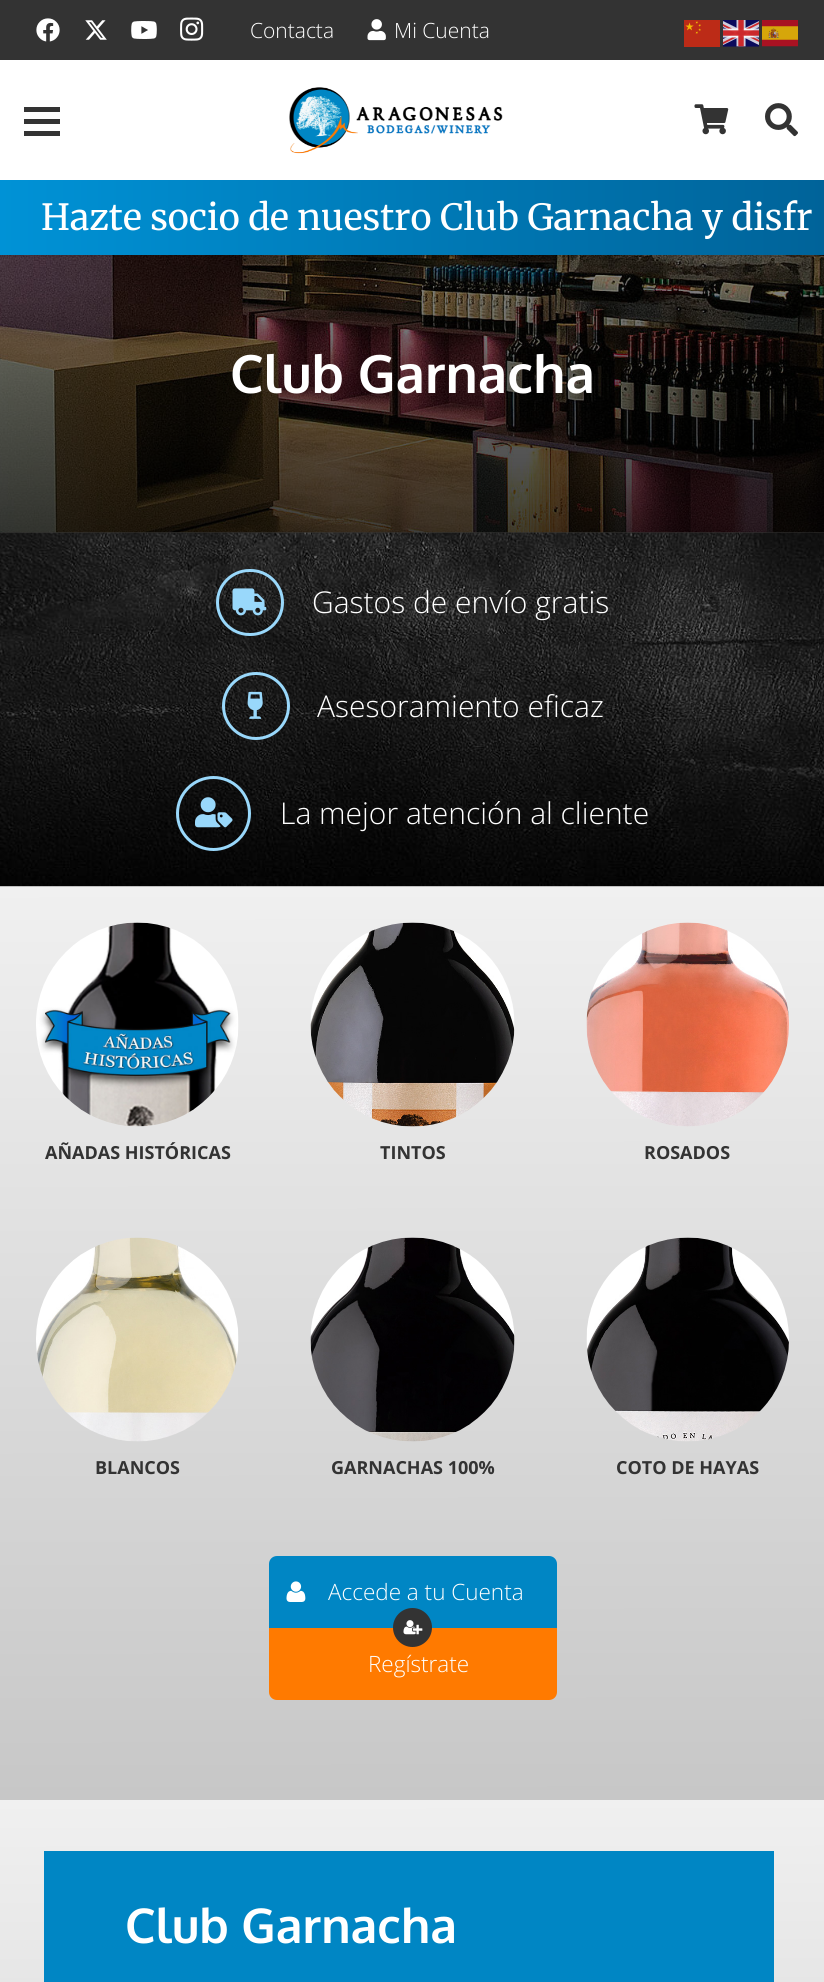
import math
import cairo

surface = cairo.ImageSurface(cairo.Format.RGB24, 824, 1982)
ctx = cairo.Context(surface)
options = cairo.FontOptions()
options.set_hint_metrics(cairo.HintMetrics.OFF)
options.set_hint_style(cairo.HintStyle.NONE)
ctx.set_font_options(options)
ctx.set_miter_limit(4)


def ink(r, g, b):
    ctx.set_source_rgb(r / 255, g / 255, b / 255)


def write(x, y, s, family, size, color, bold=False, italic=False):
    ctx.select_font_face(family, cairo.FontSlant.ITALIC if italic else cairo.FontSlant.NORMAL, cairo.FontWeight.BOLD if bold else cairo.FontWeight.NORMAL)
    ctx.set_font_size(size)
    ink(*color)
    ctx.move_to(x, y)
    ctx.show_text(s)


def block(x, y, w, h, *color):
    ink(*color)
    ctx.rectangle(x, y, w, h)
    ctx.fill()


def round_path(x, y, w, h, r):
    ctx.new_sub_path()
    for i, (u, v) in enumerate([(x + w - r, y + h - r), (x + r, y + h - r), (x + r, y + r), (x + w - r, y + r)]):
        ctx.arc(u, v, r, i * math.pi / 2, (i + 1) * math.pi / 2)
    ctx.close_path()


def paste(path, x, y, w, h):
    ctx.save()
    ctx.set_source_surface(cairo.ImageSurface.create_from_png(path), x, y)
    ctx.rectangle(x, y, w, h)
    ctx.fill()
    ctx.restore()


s1 = dict(family="Open Sans Light", size=21, color=(255, 255, 255))
s2 = dict(family="Merriweather", size=36, color=(255, 255, 255))
s3 = dict(family="Oxygen", size=52.75, color=(255, 255, 255), bold=True)
s4 = dict(family="Open Sans Light", size=30, color=(255, 255, 255))
s5 = dict(family="Open Sans", size=18, color=(51, 51, 51), bold=True)
s6 = dict(family="Open Sans Light", size=22.5, color=(255, 255, 255))
s7 = dict(family="Oxygen", size=48, color=(255, 255, 255), bold=True)

ink(255, 255, 255)
ctx.paint()
block(0, 0, 824, 60, 51, 51, 51)
paste("pic1.png", 36, 18, 24, 24)
paste("pic2.png", 85, 20, 22, 20)
paste("pic3.png", 131, 21, 26, 18)
paste("pic4.png", 180, 17, 24, 24)
write(250, 38, "Contacta", **s1)
paste("pic5.png", 367, 19, 19, 22)
write(394, 38, "Mi Cuenta", **s1)
paste("pic6.png", 684, 20, 36, 27)
paste("pic7.png", 723, 20, 36, 27)
paste("pic8.png", 762, 20, 36, 27)
block(24, 119, 36, 5, 51, 51, 51)
block(24, 107, 36, 5, 51, 51, 51)
block(24, 131, 36, 5, 51, 51, 51)
paste("pic9.png", 289, 87, 214, 67)
paste("pic10.png", 694, 104, 35, 31)
paste("pic11.png", 765, 103, 33, 34)
paste("pic12.png", 0, 255, 824, 278)
gradient = cairo.LinearGradient(413, 0, 413, 533)
gradient.add_color_stop_rgba(0, 0, 0, 0, 0.2)
gradient.add_color_stop_rgba(1, 0, 0, 0, 0.75)
ctx.set_source(gradient)
ctx.rectangle(0, 255, 824, 278)
ctx.fill()
ctx.set_source_rgba(0, 0, 0, 0.08)
ctx.rectangle(0, 255, 824, 2)
ctx.fill()
gradient = cairo.LinearGradient(0, 218, 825, 217)
gradient.add_color_stop_rgba(0, 0, 0.573, 0.839, 1)
gradient.add_color_stop_rgba(1, 0, 0.388, 0.6, 1)
ctx.set_source(gradient)
ctx.rectangle(0, 180, 824, 75)
ctx.fill()
write(41, 230, "Hazte socio de nuestro Club Garnacha y disfr", **s2)
write(230, 393, "Club Garnacha", **s3)
paste("pic13.png", 0, 532, 824, 355)
round_path(217.5, 570.5, 65, 64, 32)
ink(153, 216, 251)
ctx.set_line_width(3)
ctx.stroke()
paste("pic14.png", 232, 588, 35, 28)
write(312, 613, "Gastos de envío gratis", **s4)
ctx.new_path()
ctx.arc(256, 706, 32.5, 0, 2 * math.pi)
ink(153, 216, 251)
ctx.stroke()
paste("pic15.png", 247, 691, 16, 28)
write(317, 717, "Asesoramiento eficaz", **s4)
ctx.new_path()
ctx.arc(213.5, 813.5, 36, 0, 2 * math.pi)
ink(153, 216, 251)
ctx.stroke()
paste("pic16.png", 195, 797, 38, 31)
write(280, 824, "La mejor atención al cliente", **s4)
gradient = cairo.LinearGradient(412, 887, 413, 1800)
gradient.add_color_stop_rgba(0, 0.941, 0.941, 0.941, 1)
gradient.add_color_stop_rgba(1, 0.78, 0.78, 0.78, 1)
ctx.set_source(gradient)
ctx.rectangle(0, 887, 824, 913)
ctx.fill()
paste("pic17.png", 36, 922, 203, 205)
write(45, 1159, "AÑADAS HISTÓRICAS", **s5)
paste("pic18.png", 310, 922, 205, 205)
write(380, 1159, "TINTOS", **s5)
paste("pic19.png", 586, 922, 203, 205)
write(644, 1159, "ROSADOS", **s5)
paste("pic20.png", 36, 1237, 203, 205)
write(95, 1474, "BLANCOS", **s5)
paste("pic21.png", 310, 1237, 205, 205)
write(331, 1474, "GARNACHAS 100%", **s5)
paste("pic22.png", 586, 1237, 203, 205)
write(616, 1474, "COTO DE HAYAS", **s5)
ink(0, 134, 196)
ctx.new_path()
ctx.move_to(277, 1556)
ctx.line_to(549, 1556)
ctx.curve_to(553.5, 1556, 557, 1559.5, 557, 1564)
ctx.line_to(557, 1628)
ctx.line_to(269, 1628)
ctx.line_to(269, 1564)
ctx.curve_to(269, 1559.5, 272.5, 1556, 277, 1556)
ctx.close_path()
ctx.fill()
paste("pic23.png", 286, 1581, 20, 21)
write(328, 1600, "Accede a tu Cuenta", **s6)
ink(255, 122, 0)
ctx.new_path()
ctx.move_to(269, 1628)
ctx.line_to(557, 1628)
ctx.line_to(557, 1692)
ctx.curve_to(557, 1696.5, 553.5, 1700, 549, 1700)
ctx.line_to(277, 1700)
ctx.curve_to(272.5, 1700, 269, 1696.5, 269, 1692)
ctx.close_path()
ctx.fill()
ink(51, 51, 51)
ctx.arc(412.5, 1627.5, 19.5, 0, 2 * math.pi)
ctx.fill()
paste("pic24.png", 403, 1620, 20, 15)
write(368, 1672, "Regístrate", **s6)
gradient = cairo.LinearGradient(412, 1800, 413, 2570)
gradient.add_color_stop_rgba(0, 0.941, 0.941, 0.941, 1)
gradient.add_color_stop_rgba(1, 0.78, 0.78, 0.78, 1)
ctx.set_source(gradient)
ctx.rectangle(0, 1800, 824, 182)
ctx.fill()
block(44, 1851, 730, 131, 0, 134, 196)
write(125, 1943, "Club Garnacha", **s7)
surface.write_to_png("screenshot.png")
